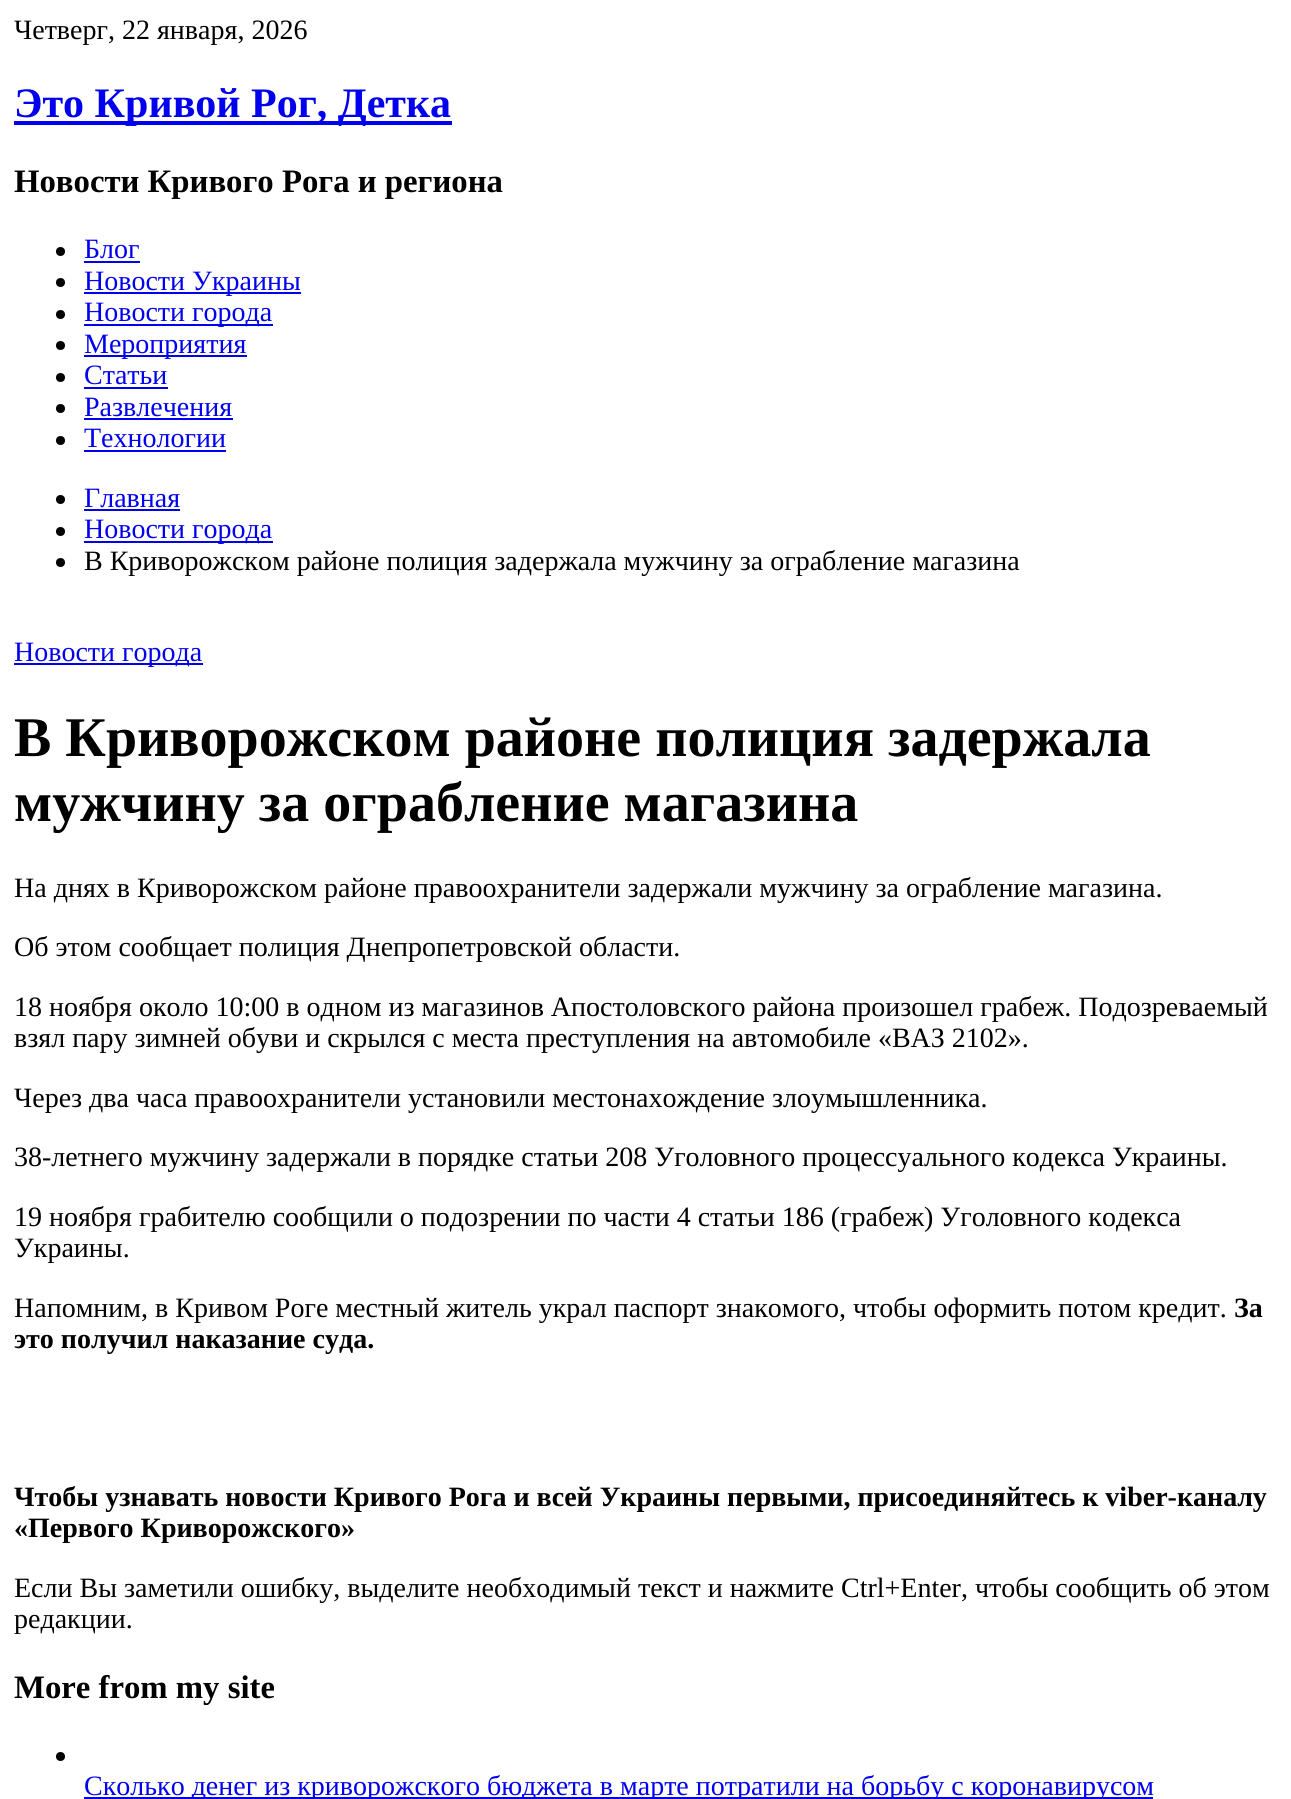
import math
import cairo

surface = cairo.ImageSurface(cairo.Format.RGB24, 1291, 1799)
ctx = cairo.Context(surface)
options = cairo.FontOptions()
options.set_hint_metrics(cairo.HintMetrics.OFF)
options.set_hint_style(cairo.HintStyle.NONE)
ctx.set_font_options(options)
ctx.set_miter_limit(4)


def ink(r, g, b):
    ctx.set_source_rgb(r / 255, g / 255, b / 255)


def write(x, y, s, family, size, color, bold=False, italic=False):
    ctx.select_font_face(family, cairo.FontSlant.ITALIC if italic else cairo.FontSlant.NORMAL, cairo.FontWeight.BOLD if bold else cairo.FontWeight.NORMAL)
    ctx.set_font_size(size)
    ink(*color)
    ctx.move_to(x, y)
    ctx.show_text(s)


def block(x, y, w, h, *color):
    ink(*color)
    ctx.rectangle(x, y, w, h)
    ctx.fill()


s1 = dict(family="Liberation Serif", size=28, color=(0, 0, 0))
s2 = dict(family="Liberation Serif", size=42, color=(0, 0, 238), bold=True)
s3 = dict(family="Liberation Serif", size=32.75, color=(0, 0, 0), bold=True)
s4 = dict(family="Liberation Serif", size=28, color=(0, 0, 238))
s5 = dict(family="Liberation Serif", size=56, color=(0, 0, 0), bold=True)
s6 = dict(family="Liberation Serif", size=28, color=(0, 0, 0), bold=True)

ink(255, 255, 255)
ctx.paint()
write(14, 39, "Четверг, 22 января, 2026", **s1)
block(14, 121, 438, 4, 0, 0, 238)
write(14, 117, "Это Кривой Рог, Детка", **s2)
write(14, 192, "Новости Кривого Рога и региона", **s3)
ctx.new_path()
ctx.arc(60.5, 251.5, 4.5, 0, 2 * math.pi)
ctx.fill()
write(84, 258, "Блог", **s4)
block(84, 261, 56, 2, 0, 0, 238)
ink(0, 0, 0)
ctx.new_path()
ctx.arc(60.5, 282.5, 4.5, 0, 2 * math.pi)
ctx.fill()
block(84, 292, 217, 2, 0, 0, 238)
write(84, 290, "Новости Украины", **s4)
ink(0, 0, 0)
ctx.new_path()
ctx.arc(60.5, 314.5, 4.5, 0, 2 * math.pi)
ctx.fill()
block(84, 324, 189, 2, 0, 0, 238)
write(84, 321, "Новости города", **s4)
ink(0, 0, 0)
ctx.new_path()
ctx.arc(60.5, 345.5, 4.5, 0, 2 * math.pi)
ctx.fill()
block(84, 355, 163, 2, 0, 0, 238)
write(84, 353, "Мероприятия", **s4)
ink(0, 0, 0)
ctx.new_path()
ctx.arc(60.5, 377.5, 4.5, 0, 2 * math.pi)
ctx.fill()
write(84, 384, "Статьи", **s4)
block(84, 387, 84, 2, 0, 0, 238)
ink(0, 0, 0)
ctx.new_path()
ctx.arc(60.5, 408.5, 4.5, 0, 2 * math.pi)
ctx.fill()
write(84, 416, "Развлечения", **s4)
block(84, 418, 149, 2, 0, 0, 238)
ink(0, 0, 0)
ctx.new_path()
ctx.arc(60.5, 440.5, 4.5, 0, 2 * math.pi)
ctx.fill()
write(84, 447, "Технологии", **s4)
block(84, 450, 142, 2, 0, 0, 238)
ink(0, 0, 0)
ctx.new_path()
ctx.arc(60.5, 499.5, 4.5, 0, 2 * math.pi)
ctx.fill()
write(84, 507, "Главная", **s4)
block(84, 509, 96, 2, 0, 0, 238)
ink(0, 0, 0)
ctx.new_path()
ctx.arc(60.5, 531.5, 4.5, 0, 2 * math.pi)
ctx.fill()
block(84, 541, 189, 2, 0, 0, 238)
write(84, 538, "Новости города", **s4)
ink(0, 0, 0)
ctx.new_path()
ctx.arc(60.5, 562.5, 4.5, 0, 2 * math.pi)
ctx.fill()
write(84, 570, "В Криворожском районе полиция задержала мужчину за ограбление магазина", **s1)
block(14, 663, 189, 2, 0, 0, 238)
write(14, 661, "Новости города", **s4)
write(14, 756, "В Криворожском районе полиция задержала", **s5)
write(14, 821, "мужчину за ограбление магазина", **s5)
write(14, 897, "На днях в Криворожском районе правоохранители задержали мужчину за ограбление магазина.", **s1)
write(14, 956, "Об этом сообщает полиция Днепропетровской области.", **s1)
write(14, 1016, "18 ноября около 10:00 в одном из магазинов Апостоловского района произошел грабеж. Подозреваемый", **s1)
write(14, 1047, "взял пару зимней обуви и скрылся с места преступления на автомобиле «ВАЗ 2102».", **s1)
write(14, 1107, "Через два часа правоохранители установили местонахождение злоумышленника.", **s1)
write(14, 1166, "38-летнего мужчину задержали в порядке статьи 208 Уголовного процессуального кодекса Украины.", **s1)
write(14, 1226, "19 ноября грабителю сообщили о подозрении по части 4 статьи 186 (грабеж) Уголовного кодекса", **s1)
write(14, 1257, "Украины.", **s1)
write(14, 1317, "Напомним, в Кривом Роге местный житель украл паспорт знакомого, чтобы оформить потом кредит.", **s1)
write(1234, 1317, "За", **s6)
write(14, 1348, "это получил наказание суда.", **s6)
write(14, 1506, "Чтобы узнавать новости Кривого Рога и всей Украины первыми, присоединяйтесь к viber-каналу", **s6)
write(14, 1537, "«Первого Криворожского»", **s6)
write(14, 1597, "Если Вы заметили ошибку, выделите необходимый текст и нажмите Ctrl+Enter, чтобы сообщить об этом", **s1)
write(14, 1628, "редакции.", **s1)
write(14, 1698, "More from my site", **s3)
ctx.new_path()
ctx.arc(60.5, 1756.5, 4.5, 0, 2 * math.pi)
ctx.fill()
block(84, 1797, 1069, 2, 0, 0, 238)
write(84, 1795, "Сколько денег из криворожского бюджета в марте потратили на борьбу с коронавирусом", **s4)
surface.write_to_png("screenshot.png")
